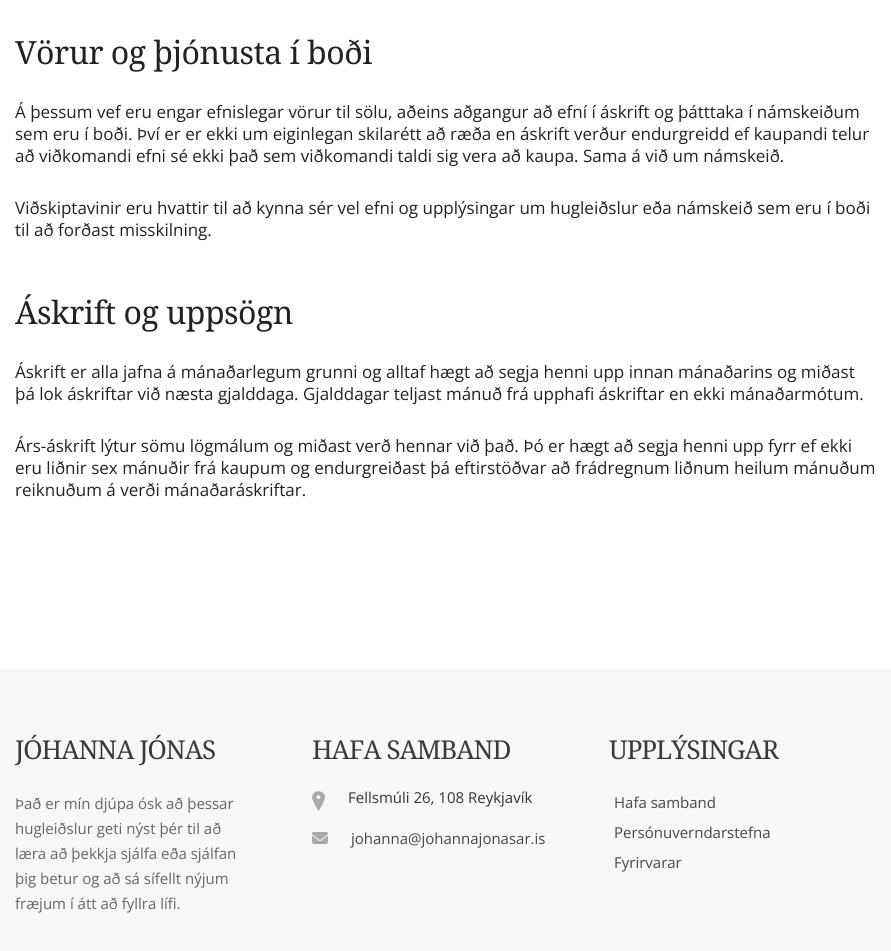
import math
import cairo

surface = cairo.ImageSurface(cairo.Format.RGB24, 891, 951)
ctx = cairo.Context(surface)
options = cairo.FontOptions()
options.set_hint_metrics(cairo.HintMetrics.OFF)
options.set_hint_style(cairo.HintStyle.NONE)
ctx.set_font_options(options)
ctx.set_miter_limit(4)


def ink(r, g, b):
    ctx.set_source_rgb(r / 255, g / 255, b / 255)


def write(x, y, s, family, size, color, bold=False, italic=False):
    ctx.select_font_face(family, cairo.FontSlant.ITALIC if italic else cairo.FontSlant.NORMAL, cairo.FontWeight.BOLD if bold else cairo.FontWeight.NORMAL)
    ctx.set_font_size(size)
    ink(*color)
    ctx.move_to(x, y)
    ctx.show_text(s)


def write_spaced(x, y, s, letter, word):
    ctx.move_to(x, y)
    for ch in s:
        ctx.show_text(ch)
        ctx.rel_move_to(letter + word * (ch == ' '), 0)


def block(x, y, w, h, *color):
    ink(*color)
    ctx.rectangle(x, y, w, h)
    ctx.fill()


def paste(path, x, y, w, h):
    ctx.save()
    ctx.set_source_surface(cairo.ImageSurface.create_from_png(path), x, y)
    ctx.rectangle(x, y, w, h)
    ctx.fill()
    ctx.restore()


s1 = dict(family="Open Sans", size=17, color=(34, 34, 34))
s2 = dict(family="Open Sans", size=15, color=(102, 102, 102))
s3 = dict(family="Open Sans", size=15, color=(51, 51, 51))
s4 = dict(family="Open Sans", size=15, color=(70, 70, 70))

ink(255, 255, 255)
ctx.paint()
ctx.select_font_face("Noto Serif")
ctx.set_font_size(32)
ink(34, 34, 34)
write_spaced(15, 64, "Vörur og þjónusta í boði", -0.5, 0)
write(15, 118, "Á þessum vef eru engar efnislegar vörur til sölu, aðeins aðgangur að efní í áskrift og þátttaka í námskeiðum", **s1)
write(15, 140, "sem eru í boði. Því er er ekki um eiginlegan skilarétt að ræða en áskrift verður endurgreidd ef kaupandi telur", **s1)
write(15, 162, "að viðkomandi efni sé ekki það sem viðkomandi taldi sig vera að kaupa. Sama á við um námskeið.", **s1)
write(15, 214, "Viðskiptavinir eru hvattir til að kynna sér vel efni og upplýsingar um hugleiðslur eða námskeið sem eru í boði", **s1)
write(15, 236, "til að forðast misskilning.", **s1)
ctx.select_font_face("Noto Serif")
ctx.set_font_size(32)
write_spaced(15, 324, "Áskrift og uppsögn", -0.5, 0)
write(15, 378, "Áskrift er alla jafna á mánaðarlegum grunni og alltaf hægt að segja henni upp innan mánaðarins og miðast", **s1)
write(15, 400, "þá lok áskriftar við næsta gjalddaga. Gjalddagar teljast mánuð frá upphafi áskriftar en ekki mánaðarmótum.", **s1)
write(15, 452, "Árs-áskrift lýtur sömu lögmálum og miðast verð hennar við það. Þó er hægt að segja henni upp fyrr ef ekki", **s1)
write(15, 474, "eru liðnir sex mánuðir frá kaupum og endurgreiðast þá eftirstöðvar að frádregnum liðnum heilum mánuðum", **s1)
write(15, 496, "reiknuðum á verði mánaðaráskriftar.", **s1)
block(0, 669, 891, 282, 247, 247, 247)
ctx.select_font_face("Noto Serif")
ctx.set_font_size(26)
ink(58, 58, 58)
write_spaced(15, 759, "JÓHANNA JÓNAS", -1, 0)
write(15, 809, "Það er mín djúpa ósk að þessar", **s2)
write(15, 834, "hugleiðslur geti nýst þér til að", **s2)
write(15, 859, "læra að þekkja sjálfa eða sjálfan", **s2)
write(15, 884, "þig betur og að sá sífellt nýjum", **s2)
write(15, 909, "fræjum í átt að fyllra lífi.", **s2)
ctx.select_font_face("Noto Serif")
ctx.set_font_size(26)
ink(58, 58, 58)
write_spaced(312, 759, "HAFA SAMBAND", -1, 0)
paste("pic1.png", 312, 791, 13, 20)
write(348, 803, "Fellsmúli 26, 108 Reykjavík", **s3)
paste("pic2.png", 312, 832, 16, 12)
write(351, 844, "johanna@johannajonasar.is", **s4)
ctx.select_font_face("Noto Serif")
ctx.set_font_size(26)
ink(58, 58, 58)
write_spaced(609, 759, "UPPLÝSINGAR", -1, 0)
write(614, 808, "Hafa samband", **s4)
write(614, 838, "Persónuverndarstefna", **s4)
write(614, 868, "Fyrirvarar", **s4)
surface.write_to_png("screenshot.png")
